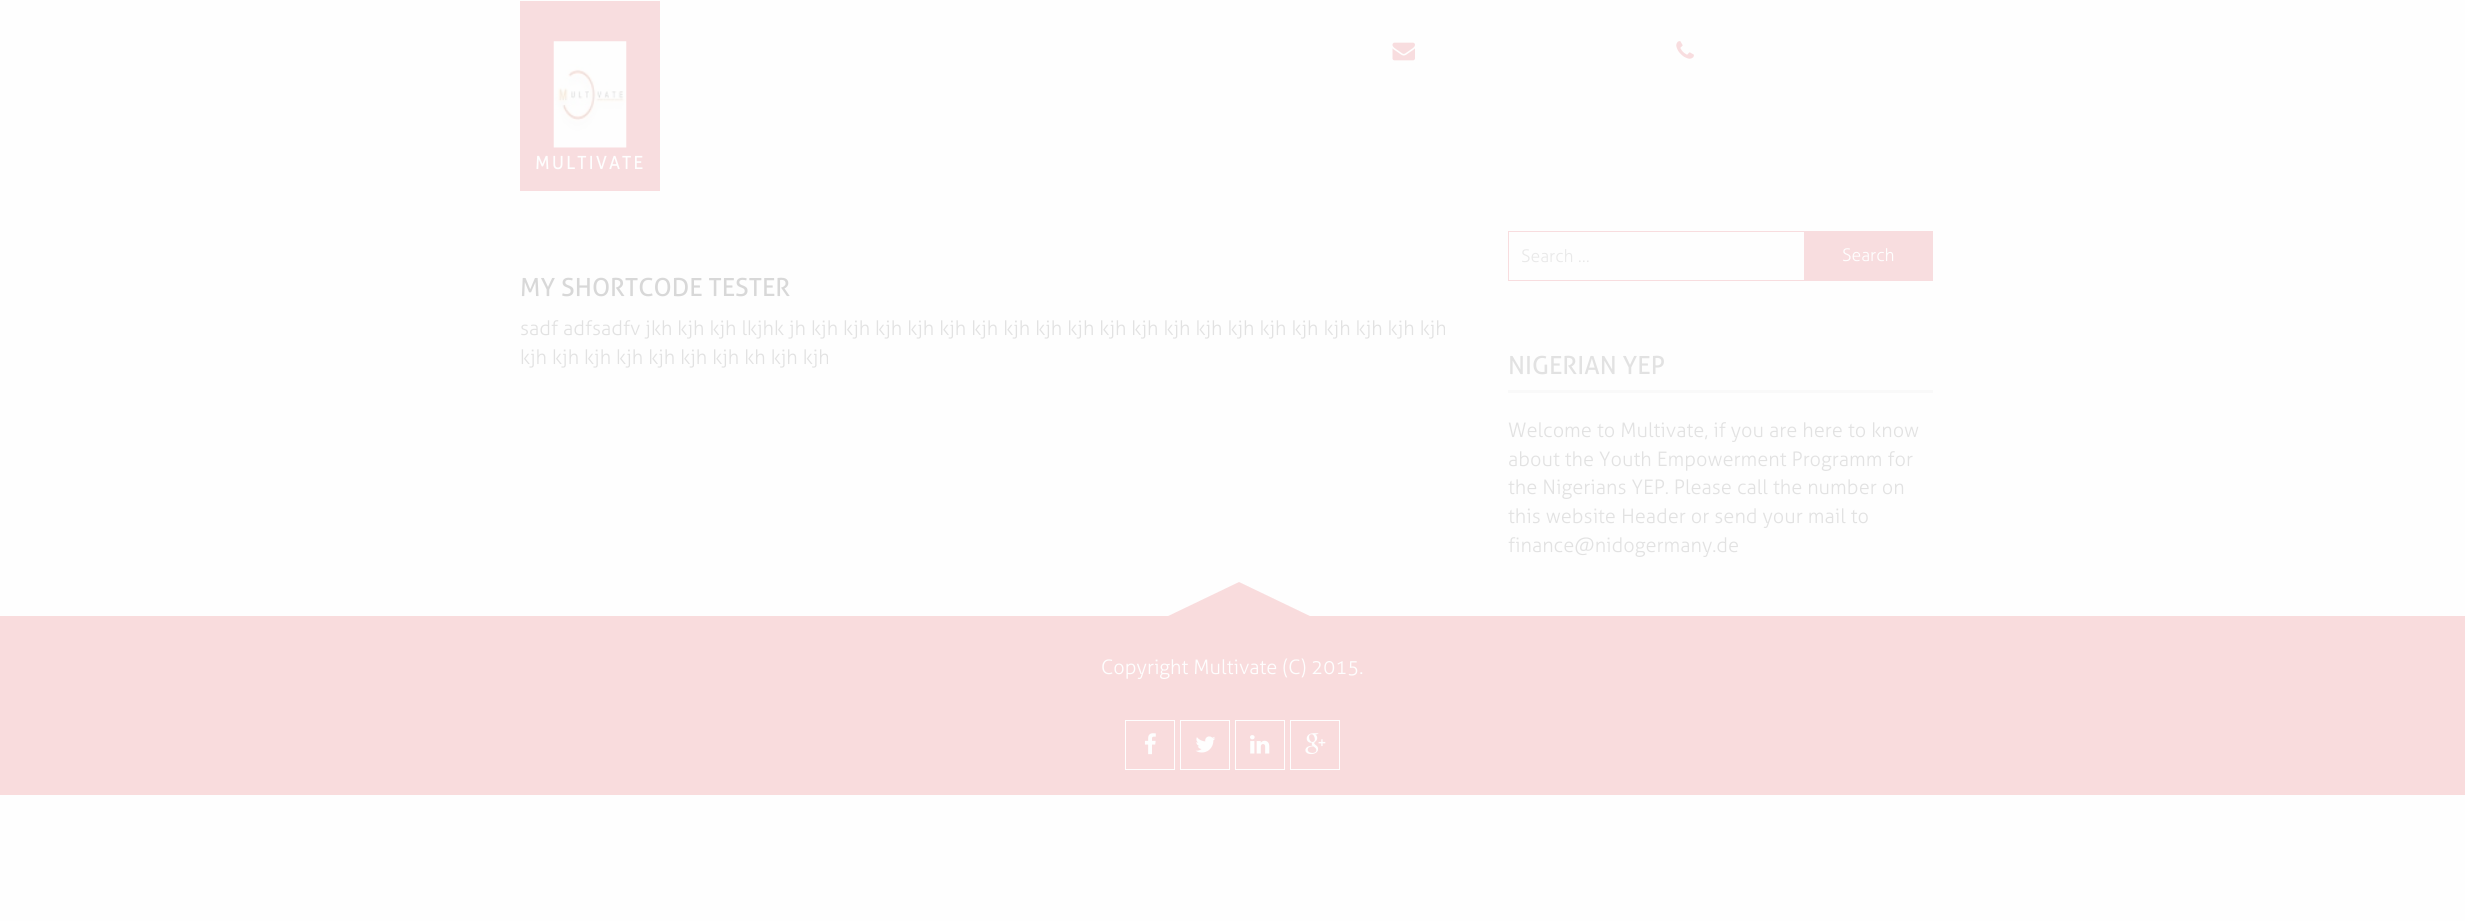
import math
import cairo

surface = cairo.ImageSurface(cairo.Format.RGB24, 2465, 921)
ctx = cairo.Context(surface)
options = cairo.FontOptions()
options.set_hint_metrics(cairo.HintMetrics.OFF)
options.set_hint_style(cairo.HintStyle.NONE)
ctx.set_font_options(options)
ctx.set_miter_limit(4)


def ink(r, g, b):
    ctx.set_source_rgb(r / 255, g / 255, b / 255)


def write(x, y, s, family, size, color, bold=False, italic=False):
    ctx.select_font_face(family, cairo.FontSlant.ITALIC if italic else cairo.FontSlant.NORMAL, cairo.FontWeight.BOLD if bold else cairo.FontWeight.NORMAL)
    ctx.set_font_size(size)
    ink(*color)
    ctx.move_to(x, y)
    ctx.show_text(s)


def write_spaced(x, y, s, letter, word):
    ctx.move_to(x, y)
    for ch in s:
        ctx.show_text(ch)
        ctx.rel_move_to(letter + word * (ch == ' '), 0)


def block(x, y, w, h, *color):
    ink(*color)
    ctx.rectangle(x, y, w, h)
    ctx.fill()


def paste(path, x, y, w, h):
    ctx.save()
    ctx.set_source_surface(cairo.ImageSurface.create_from_png(path), x, y)
    ctx.rectangle(x, y, w, h)
    ctx.fill()
    ctx.restore()


s1 = dict(family="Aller", size=25, color=(216, 216, 216))
s2 = dict(family="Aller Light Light", size=20, color=(226, 226, 226))
s3 = dict(family="Aller Light Light", size=17.5, color=(233, 233, 233))
s4 = dict(family="Aller Light Light", size=17.5, color=(254, 254, 254))
s5 = dict(family="Aller", size=25, color=(226, 226, 226))
s6 = dict(family="Aller Light Light", size=20, color=(254, 254, 254))

ink(254, 254, 254)
ctx.paint()
paste("pic1.png", 1392, 42, 23, 19)
paste("pic2.png", 1676, 41, 18, 18)
block(520, 1, 140, 190, 248, 221, 223)
paste("pic3.png", 553, 41, 74, 107)
ctx.select_font_face("Aller Light", cairo.FontSlant.NORMAL, cairo.FontWeight.BOLD)
ctx.set_font_size(17.5)
ink(254, 254, 254)
write_spaced(535, 169, "MULTIVATE", 2.5, 0)
write(520, 296, "MY SHORTCODE TESTER", **s1)
write(520, 335, "sadf adfsadfv jkh kjh kjh lkjhk jh kjh kjh kjh kjh kjh kjh kjh kjh kjh kjh kjh kjh kjh kjh kjh kjh kjh kjh kjh kjh", **s2)
write(520, 364, "kjh kjh kjh kjh kjh kjh kjh kh kjh kjh", **s2)
ctx.rectangle(1508.5, 231.5, 296, 49)
ink(248, 221, 223)
ctx.set_line_width(1)
ctx.stroke()
write(1521, 262, "Search …", **s3)
block(1805, 231, 128, 50, 248, 221, 223)
write(1842, 261, "Search", **s4)
block(1508, 390, 425, 3, 249, 249, 249)
write(1508, 374, "NIGERIAN YEP", **s5)
write(1508, 437, "Welcome to Multivate, if you are here to know", **s2)
write(1508, 466, "about the Youth Empowerment Programm for", **s2)
write(1508, 494, "the Nigerians YEP. Please call the number on", **s2)
write(1508, 523, "this website Header or send your mail to", **s2)
write(1508, 552, "finance@nidogermany.de", **s2)
block(0, 616, 2465, 179, 249, 220, 221)
ctx.new_path()
ctx.move_to(1314, 618)
ctx.line_to(1164, 618)
ctx.line_to(1239, 582)
ctx.close_path()
ctx.fill()
write(1101, 674, "Copyright Multivate (C) 2015.", **s6)
ctx.rectangle(1125.5, 720.5, 49, 49)
ctx.stroke()
paste("pic4.png", 1144, 733, 12, 22)
ctx.rectangle(1180.5, 720.5, 49, 49)
ctx.stroke()
paste("pic5.png", 1195, 736, 21, 17)
ctx.rectangle(1235.5, 720.5, 49, 49)
ctx.stroke()
paste("pic6.png", 1250, 735, 20, 19)
ctx.rectangle(1290.5, 720.5, 49, 49)
ctx.stroke()
paste("pic7.png", 1305, 733, 21, 22)
surface.write_to_png("screenshot.png")
